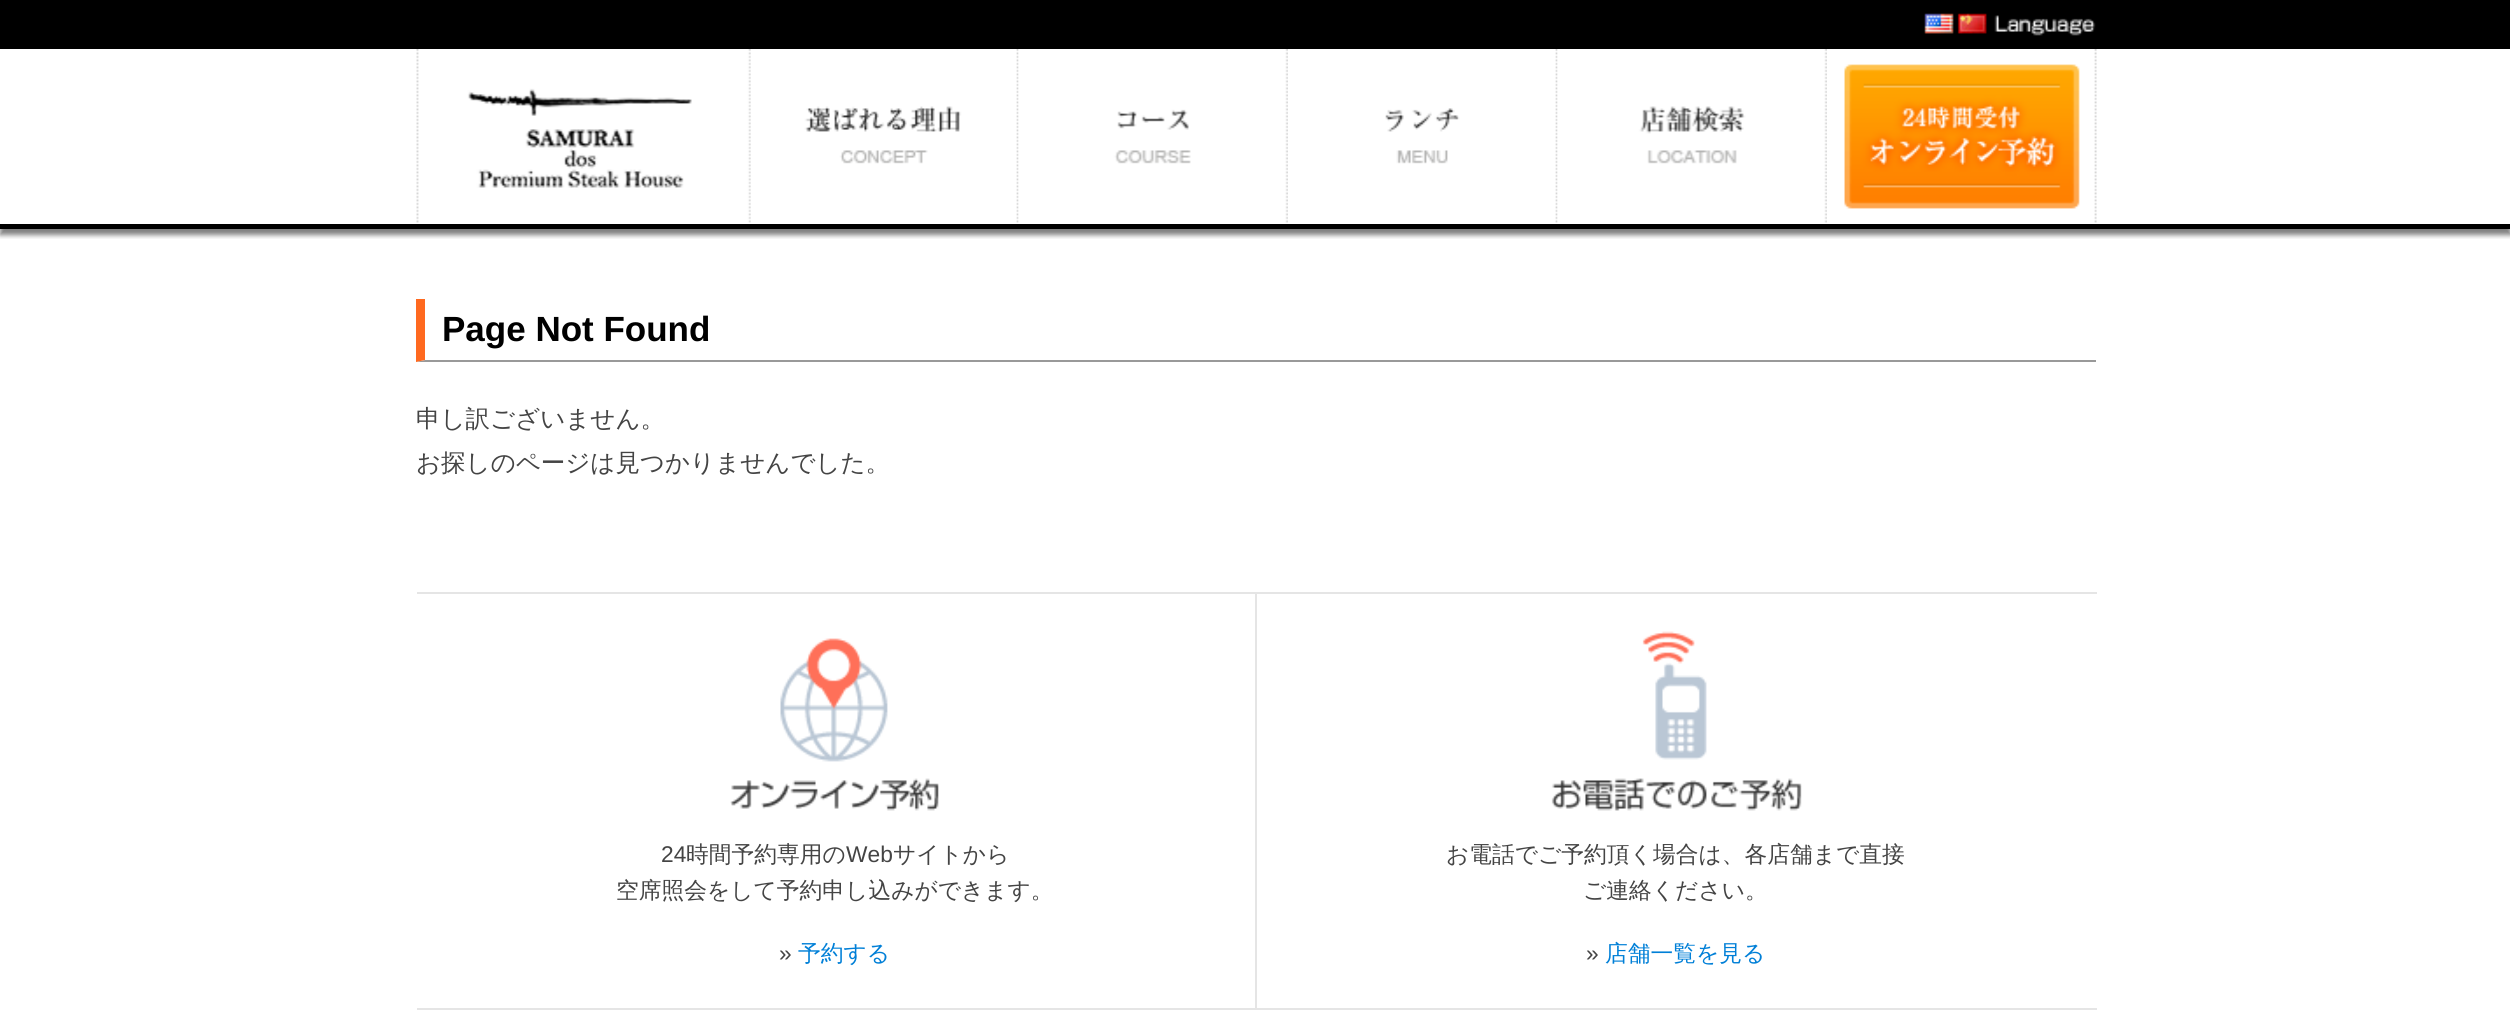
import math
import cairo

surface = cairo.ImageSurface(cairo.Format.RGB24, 2510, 1019)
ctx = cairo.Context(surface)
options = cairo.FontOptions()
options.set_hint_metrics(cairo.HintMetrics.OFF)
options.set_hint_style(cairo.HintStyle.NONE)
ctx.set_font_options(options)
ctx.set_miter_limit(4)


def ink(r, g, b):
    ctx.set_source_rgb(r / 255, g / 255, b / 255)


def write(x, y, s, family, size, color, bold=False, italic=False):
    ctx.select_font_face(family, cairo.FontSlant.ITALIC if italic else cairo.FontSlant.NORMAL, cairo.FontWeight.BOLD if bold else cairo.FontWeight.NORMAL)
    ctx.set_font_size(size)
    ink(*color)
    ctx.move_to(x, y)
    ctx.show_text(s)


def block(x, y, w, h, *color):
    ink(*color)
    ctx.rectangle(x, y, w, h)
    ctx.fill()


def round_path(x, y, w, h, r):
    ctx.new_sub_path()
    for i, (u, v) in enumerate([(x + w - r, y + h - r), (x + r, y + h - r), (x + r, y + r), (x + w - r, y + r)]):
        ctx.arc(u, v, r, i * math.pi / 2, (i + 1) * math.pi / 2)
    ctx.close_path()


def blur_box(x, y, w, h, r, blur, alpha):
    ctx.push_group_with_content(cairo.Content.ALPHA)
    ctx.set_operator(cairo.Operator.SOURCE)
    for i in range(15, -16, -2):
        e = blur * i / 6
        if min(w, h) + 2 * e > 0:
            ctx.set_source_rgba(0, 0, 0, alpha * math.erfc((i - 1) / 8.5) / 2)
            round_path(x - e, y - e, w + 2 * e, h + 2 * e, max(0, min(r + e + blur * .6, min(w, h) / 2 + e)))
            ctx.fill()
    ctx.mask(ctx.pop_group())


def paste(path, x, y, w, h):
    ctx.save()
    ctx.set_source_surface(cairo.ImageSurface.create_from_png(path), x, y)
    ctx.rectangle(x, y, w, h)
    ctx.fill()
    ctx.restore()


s1 = dict(family="Liberation Sans", size=35, color=(0, 0, 0), bold=True)
s2 = dict(family="WenQuanYi Zen Hei Medium", size=24.5, color=(68, 68, 68))
s3 = dict(family="Liberation Sans", size=22.75, color=(68, 68, 68))
s4 = dict(family="WenQuanYi Zen Hei Medium", size=22.75, color=(68, 68, 68))
s5 = dict(family="WenQuanYi Zen Hei Medium", size=22.75, color=(0, 127, 215))

ink(255, 255, 255)
ctx.paint()
ctx.save()
ctx.rectangle(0, 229, 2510, 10)
ctx.clip()
ink(0, 0, 0)
blur_box(0, 5, 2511, 230, 0, 2.5, 0.5)
ctx.restore()
block(0, 0, 2510, 49, 0, 0, 0)
paste("pic1.png", 1924, 13, 172, 23)
block(0, 224, 2510, 5, 0, 0, 0)
paste("pic2.png", 416, 49, 335, 174)
paste("pic3.png", 750, 49, 269, 174)
paste("pic4.png", 1018, 49, 270, 174)
paste("pic5.png", 1288, 49, 270, 174)
paste("pic6.png", 1557, 49, 270, 174)
paste("pic7.png", 1827, 49, 270, 174)
ink(153, 153, 153)
ctx.new_path()
ctx.move_to(2096, 362)
ctx.line_to(416, 362)
ctx.line_to(425, 360)
ctx.line_to(2096, 360)
ctx.close_path()
ctx.fill()
ink(255, 105, 31)
ctx.new_path()
ctx.move_to(416, 362)
ctx.line_to(416, 299)
ctx.line_to(425, 299)
ctx.line_to(425, 360)
ctx.close_path()
ctx.fill()
write(442, 341, "Page Not Found", **s1)
write(416, 427, "申し訳ございません。", **s2)
write(416, 471, "お探しのページは見つかりませんでした。", **s2)
block(417, 592, 1680, 2, 229, 229, 229)
block(417, 1008, 1680, 2, 229, 229, 229)
block(1255, 593, 2, 415, 229, 229, 229)
paste("pic8.png", 730, 638, 209, 173)
write(661, 862, "24", **s3)
write(686, 862, "時間予約専用の", **s4)
write(846, 862, "Web", **s3)
write(893, 862, "サイトから", **s4)
write(616, 898, "空席照会をして予約申し込みができます。", **s4)
write(779, 961, "»", **s3)
write(798, 961, "予約する", **s5)
paste("pic9.png", 1551, 631, 251, 180)
write(1446, 862, "お電話でご予約頂く場合は、各店舗まで直接", **s4)
write(1583, 898, "ご連絡ください。", **s4)
write(1586, 961, "»", **s3)
write(1605, 961, "店舗一覧を見る", **s5)
surface.write_to_png("screenshot.png")
